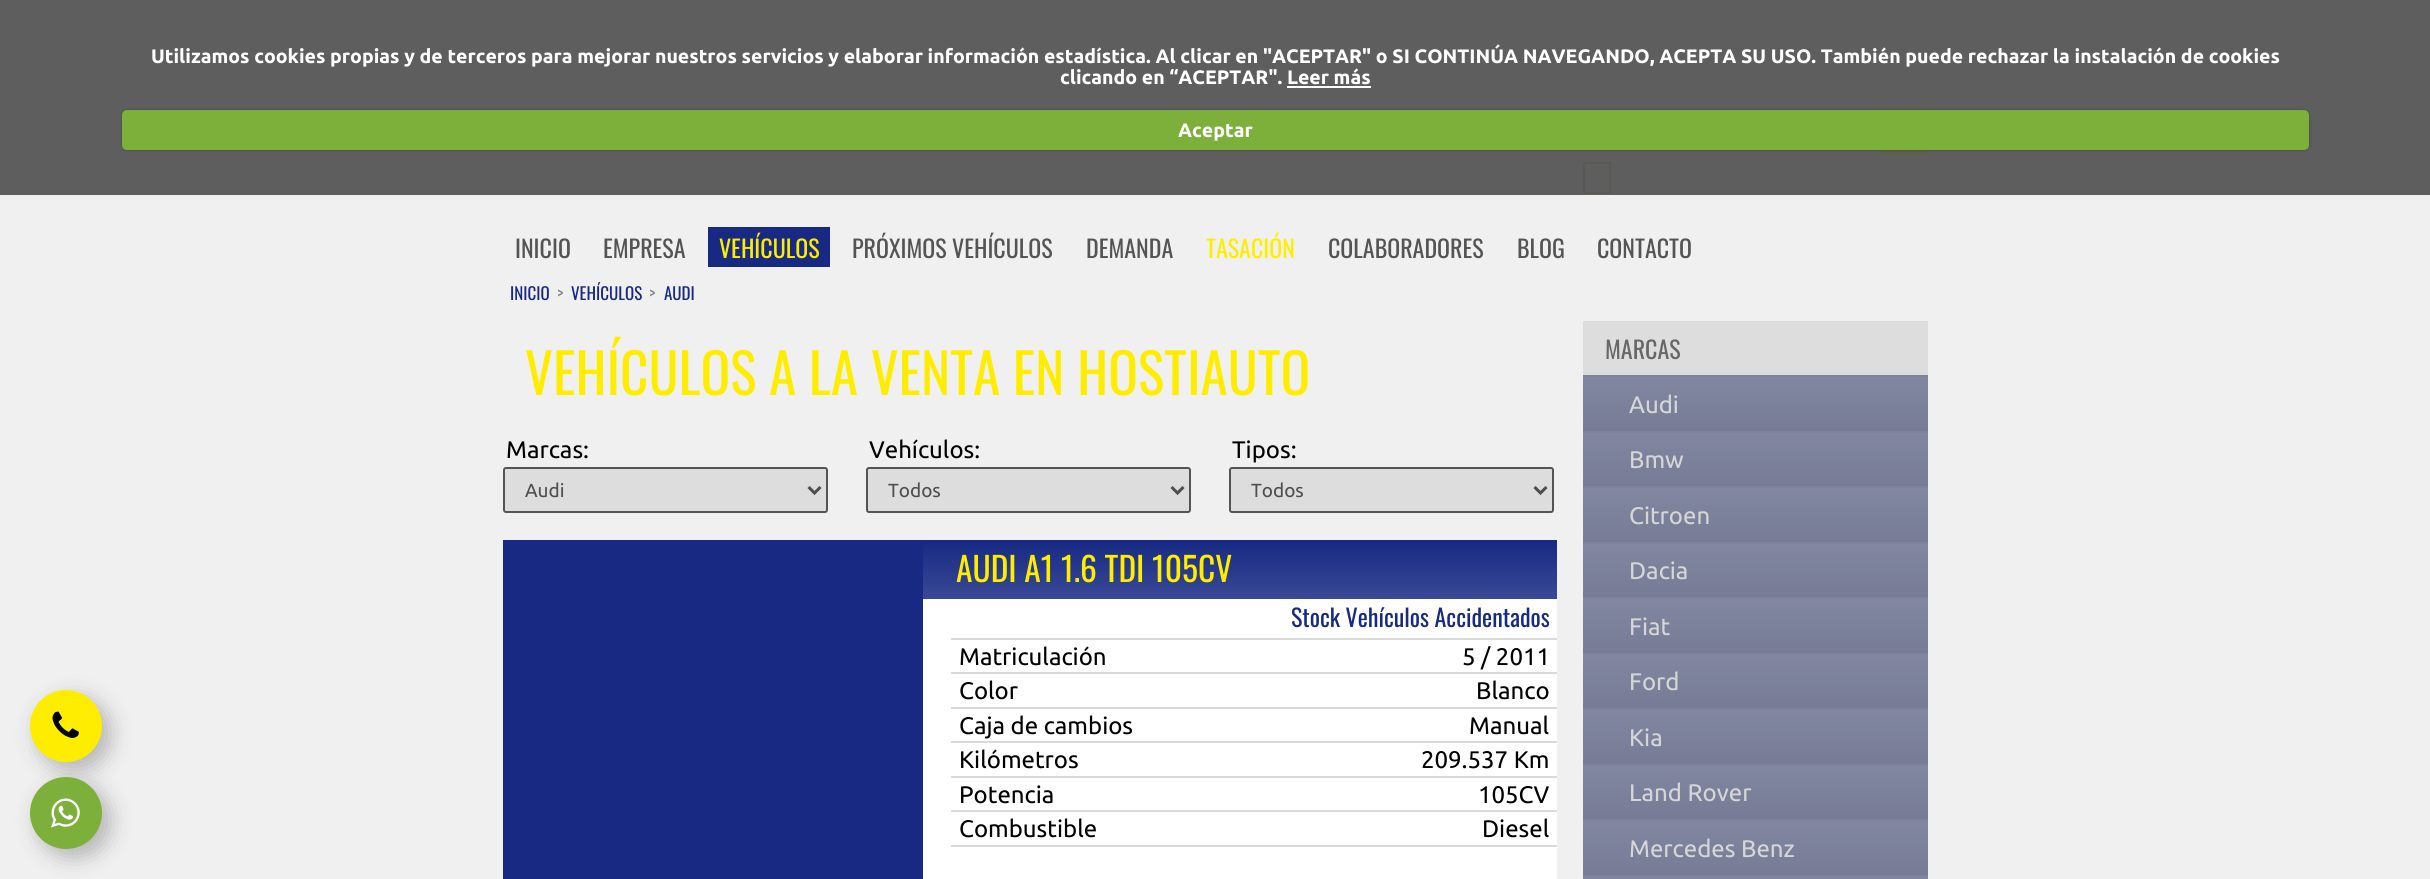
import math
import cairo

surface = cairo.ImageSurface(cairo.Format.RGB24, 2430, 879)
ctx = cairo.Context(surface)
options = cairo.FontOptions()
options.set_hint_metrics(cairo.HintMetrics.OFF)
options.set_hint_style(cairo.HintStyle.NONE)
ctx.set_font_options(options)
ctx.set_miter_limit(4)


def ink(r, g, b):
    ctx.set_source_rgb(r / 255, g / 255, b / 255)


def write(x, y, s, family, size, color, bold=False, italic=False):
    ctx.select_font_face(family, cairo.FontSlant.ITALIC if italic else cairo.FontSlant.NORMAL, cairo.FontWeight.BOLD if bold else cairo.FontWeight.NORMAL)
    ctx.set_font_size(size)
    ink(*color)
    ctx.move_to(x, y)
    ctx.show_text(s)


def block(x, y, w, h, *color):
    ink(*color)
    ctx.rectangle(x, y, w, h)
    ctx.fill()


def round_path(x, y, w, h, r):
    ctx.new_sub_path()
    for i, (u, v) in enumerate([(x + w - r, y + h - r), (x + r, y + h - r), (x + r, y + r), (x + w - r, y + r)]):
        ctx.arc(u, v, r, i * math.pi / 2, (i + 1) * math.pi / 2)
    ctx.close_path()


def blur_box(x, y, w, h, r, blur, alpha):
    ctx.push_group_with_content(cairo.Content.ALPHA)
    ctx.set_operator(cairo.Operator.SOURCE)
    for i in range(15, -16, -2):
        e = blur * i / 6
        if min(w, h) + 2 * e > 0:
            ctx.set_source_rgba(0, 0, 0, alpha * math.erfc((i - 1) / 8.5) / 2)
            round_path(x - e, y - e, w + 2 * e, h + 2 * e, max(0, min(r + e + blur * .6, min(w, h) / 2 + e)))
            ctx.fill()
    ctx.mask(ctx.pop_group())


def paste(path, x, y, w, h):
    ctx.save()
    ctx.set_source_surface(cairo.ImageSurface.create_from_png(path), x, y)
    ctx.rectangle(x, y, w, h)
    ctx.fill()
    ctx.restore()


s1 = dict(family="Ubuntu", size=19.5, color=(255, 255, 255), bold=True)
s2 = dict(family="Oswald", size=24, color=(84, 84, 84))
s3 = dict(family="Oswald", size=24, color=(255, 237, 0))
s4 = dict(family="Oswald", size=17, color=(23, 41, 131))
s5 = dict(family="Oswald", size=17, color=(135, 135, 135))
s6 = dict(family="Oswald", size=55.25, color=(255, 237, 0))
s7 = dict(family="Ubuntu", size=24, color=(0, 0, 0))
s8 = dict(family="Ubuntu", size=19, color=(78, 78, 78))
s9 = dict(family="Oswald", size=33.5, color=(255, 237, 0))
s10 = dict(family="Oswald", size=24, color=(23, 41, 131))
s11 = dict(family="Oswald", size=24, color=(103, 103, 103))
s12 = dict(family="Ubuntu", size=24, color=(214, 214, 214))

ink(240, 240, 240)
ctx.paint()
block(0, 0, 2430, 195, 94, 94, 94)
write(151, 63, "Utilizamos cookies propias y de terceros para mejorar nuestros servicios y elaborar información estadística. Al clicar en \"ACEPTAR\" o SI CONTINÚA NAVEGANDO, ACEPTA SU USO. También puede rechazar la instalación de cookies", **s1)
write(1060, 84, "clicando en “ACEPTAR\". Leer más", **s1)
block(1287, 86, 84, 2, 255, 255, 255)
ink(94, 94, 82)
round_path(1881, 108, 47, 47, 3)
ctx.fill()
ink(0, 0, 0)
blur_box(122, 110, 2187, 40, 5, 1.5, 0.25)
ink(125, 175, 59)
round_path(122, 110, 2187, 40, 5)
ctx.fill()
write(1178, 137, "Aceptar", **s1)
ctx.new_path()
ctx.move_to(1586, 163)
ctx.line_to(1610, 163)
ctx.line_to(1610, 193)
ctx.line_to(1586, 193)
ctx.curve_to(1585, 193, 1584, 192, 1584, 191)
ctx.line_to(1584, 165)
ctx.curve_to(1584, 164, 1585, 163, 1586, 163)
ctx.close_path()
ink(86, 91, 83)
ctx.stroke()
write(515, 258, "INICIO", **s2)
write(603, 258, "EMPRESA", **s2)
block(708, 227, 122, 40, 23, 41, 131)
write(719, 258, "VEHÍCULOS", **s3)
write(852, 258, "PRÓXIMOS VEHÍCULOS", **s2)
write(1086, 258, "DEMANDA", **s2)
write(1206, 258, "TASACIÓN", **s3)
write(1328, 258, "COLABORADORES", **s2)
write(1517, 258, "BLOG", **s2)
write(1597, 258, "CONTACTO", **s2)
ink(0, 0, 0)
blur_box(38, 698, 72, 72, 36, 11, 0.25)
ink(255, 237, 0)
ctx.arc(66, 726, 36, 0, 2 * math.pi)
ctx.fill()
paste("pic1.png", 52, 711, 27, 27)
ink(0, 0, 0)
blur_box(38, 785, 72, 72, 36, 11, 0.25)
ink(125, 175, 59)
ctx.arc(66, 813, 36, 0, 2 * math.pi)
ctx.fill()
paste("pic2.png", 51, 798, 29, 30)
write(510, 300, "INICIO", **s4)
write(557, 300, ">", **s5)
write(571, 300, "VEHÍCULOS", **s4)
write(649, 300, ">", **s5)
write(664, 300, "AUDI", **s4)
write(525, 395, "VEHÍCULOS A LA VENTA EN HOSTIAUTO", **s6)
write(506, 458, "Marcas:", **s7)
ink(221, 221, 221)
round_path(504, 468, 323, 44, 2)
ctx.fill_preserve()
ink(84, 84, 84)
ctx.stroke()
ctx.new_path()
ctx.move_to(808.5, 487)
ctx.line_to(814.5, 493)
ctx.line_to(820.5, 487)
ink(78, 78, 78)
ctx.set_line_width(3)
ctx.stroke()
write(525, 497, "Audi", **s8)
write(869, 458, "Vehículos:", **s7)
ink(221, 221, 221)
round_path(867, 468, 323, 44, 2)
ctx.fill_preserve()
ink(84, 84, 84)
ctx.set_line_width(2)
ctx.stroke()
ctx.new_path()
ctx.move_to(1171.5, 487)
ctx.line_to(1177.5, 493)
ctx.line_to(1183.5, 487)
ink(78, 78, 78)
ctx.set_line_width(3)
ctx.stroke()
write(888, 497, "Todos", **s8)
write(1232, 458, "Tipos:", **s7)
ink(221, 221, 221)
round_path(1230, 468, 323, 44, 2)
ctx.fill_preserve()
ink(84, 84, 84)
ctx.set_line_width(2)
ctx.stroke()
ctx.new_path()
ctx.move_to(1534.5, 487)
ctx.line_to(1540.5, 493)
ctx.line_to(1546.5, 487)
ink(78, 78, 78)
ctx.set_line_width(3)
ctx.stroke()
write(1251, 497, "Todos", **s8)
gradient = cairo.LinearGradient(503, 540, 503, 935)
gradient.add_color_stop_rgba(0, 0.09, 0.161, 0.514, 1)
gradient.add_color_stop_rgba(1, 1, 1, 1, 1)
ctx.set_source(gradient)
ctx.rectangle(923, 540, 634, 59)
ctx.fill()
block(503, 540, 420, 339, 23, 41, 131)
write(956, 582, "AUDI A1 1.6 TDI 105CV", **s9)
block(923, 599, 634, 280, 255, 255, 255)
block(951, 638, 606, 2, 218, 218, 218)
write(1291, 627, "Stock Vehículos Accidentados", **s10)
block(951, 672, 606, 2, 218, 218, 218)
write(959, 665, "Matriculación", **s7)
write(1462, 665, "5 / 2011", **s7)
block(951, 707, 606, 2, 218, 218, 218)
write(959, 699, "Color", **s7)
write(1476, 699, "Blanco", **s7)
block(951, 741, 606, 2, 218, 218, 218)
write(959, 734, "Caja de cambios", **s7)
write(1469, 734, "Manual", **s7)
block(951, 776, 606, 2, 218, 218, 218)
write(959, 768, "Kilómetros", **s7)
write(1421, 768, "209.537 Km", **s7)
block(951, 810, 606, 2, 218, 218, 218)
write(959, 803, "Potencia", **s7)
write(1478, 803, "105CV", **s7)
block(951, 845, 606, 2, 218, 218, 218)
write(959, 837, "Combustible", **s7)
write(1482, 837, "Diesel", **s7)
block(1583, 321, 345, 54, 221, 221, 221)
write(1605, 359, "MARCAS", **s11)
gradient = cairo.LinearGradient(1583, 377, 1583, 431)
gradient.add_color_stop_rgba(0, 0.51, 0.529, 0.631, 1)
gradient.add_color_stop_rgba(1, 0.467, 0.486, 0.588, 1)
ctx.set_source(gradient)
ctx.rectangle(1583, 377, 345, 54)
ctx.fill()
block(1583, 375, 345, 2, 126, 131, 155)
write(1629, 413, "Audi", **s12)
gradient = cairo.LinearGradient(1583, 432, 1583, 486)
gradient.add_color_stop_rgba(0, 0.51, 0.529, 0.631, 1)
gradient.add_color_stop_rgba(1, 0.467, 0.486, 0.588, 1)
ctx.set_source(gradient)
ctx.rectangle(1583, 433, 345, 53)
ctx.fill()
block(1583, 431, 345, 2, 126, 131, 155)
write(1629, 468, "Bmw", **s12)
gradient = cairo.LinearGradient(1583, 488, 1583, 542)
gradient.add_color_stop_rgba(0, 0.51, 0.529, 0.631, 1)
gradient.add_color_stop_rgba(1, 0.467, 0.486, 0.588, 1)
ctx.set_source(gradient)
ctx.rectangle(1583, 488, 345, 54)
ctx.fill()
block(1583, 486, 345, 2, 126, 131, 155)
write(1629, 524, "Citroen", **s12)
gradient = cairo.LinearGradient(1583, 543, 1583, 597)
gradient.add_color_stop_rgba(0, 0.51, 0.529, 0.631, 1)
gradient.add_color_stop_rgba(1, 0.467, 0.486, 0.588, 1)
ctx.set_source(gradient)
ctx.rectangle(1583, 544, 345, 53)
ctx.fill()
block(1583, 542, 345, 2, 126, 131, 155)
write(1629, 579, "Dacia", **s12)
gradient = cairo.LinearGradient(1583, 599, 1583, 653)
gradient.add_color_stop_rgba(0, 0.51, 0.529, 0.631, 1)
gradient.add_color_stop_rgba(1, 0.467, 0.486, 0.588, 1)
ctx.set_source(gradient)
ctx.rectangle(1583, 599, 345, 54)
ctx.fill()
block(1583, 597, 345, 2, 126, 131, 155)
write(1629, 635, "Fiat", **s12)
gradient = cairo.LinearGradient(1583, 654, 1583, 708)
gradient.add_color_stop_rgba(0, 0.51, 0.529, 0.631, 1)
gradient.add_color_stop_rgba(1, 0.467, 0.486, 0.588, 1)
ctx.set_source(gradient)
ctx.rectangle(1583, 655, 345, 53)
ctx.fill()
block(1583, 653, 345, 2, 126, 131, 155)
write(1629, 690, "Ford", **s12)
gradient = cairo.LinearGradient(1583, 710, 1583, 764)
gradient.add_color_stop_rgba(0, 0.51, 0.529, 0.631, 1)
gradient.add_color_stop_rgba(1, 0.467, 0.486, 0.588, 1)
ctx.set_source(gradient)
ctx.rectangle(1583, 710, 345, 54)
ctx.fill()
block(1583, 708, 345, 2, 126, 131, 155)
write(1629, 746, "Kia", **s12)
gradient = cairo.LinearGradient(1583, 765, 1583, 819)
gradient.add_color_stop_rgba(0, 0.51, 0.529, 0.631, 1)
gradient.add_color_stop_rgba(1, 0.467, 0.486, 0.588, 1)
ctx.set_source(gradient)
ctx.rectangle(1583, 766, 345, 53)
ctx.fill()
block(1583, 764, 345, 2, 126, 131, 155)
write(1629, 801, "Land Rover", **s12)
gradient = cairo.LinearGradient(1583, 821, 1583, 875)
gradient.add_color_stop_rgba(0, 0.51, 0.529, 0.631, 1)
gradient.add_color_stop_rgba(1, 0.467, 0.486, 0.588, 1)
ctx.set_source(gradient)
ctx.rectangle(1583, 821, 345, 54)
ctx.fill()
block(1583, 819, 345, 2, 126, 131, 155)
write(1629, 857, "Mercedes Benz", **s12)
gradient = cairo.LinearGradient(1583, 876, 1583, 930)
gradient.add_color_stop_rgba(0, 0.51, 0.529, 0.631, 1)
gradient.add_color_stop_rgba(1, 0.467, 0.486, 0.588, 1)
ctx.set_source(gradient)
ctx.rectangle(1583, 877, 345, 2)
ctx.fill()
block(1583, 875, 345, 2, 126, 131, 155)
surface.write_to_png("screenshot.png")
